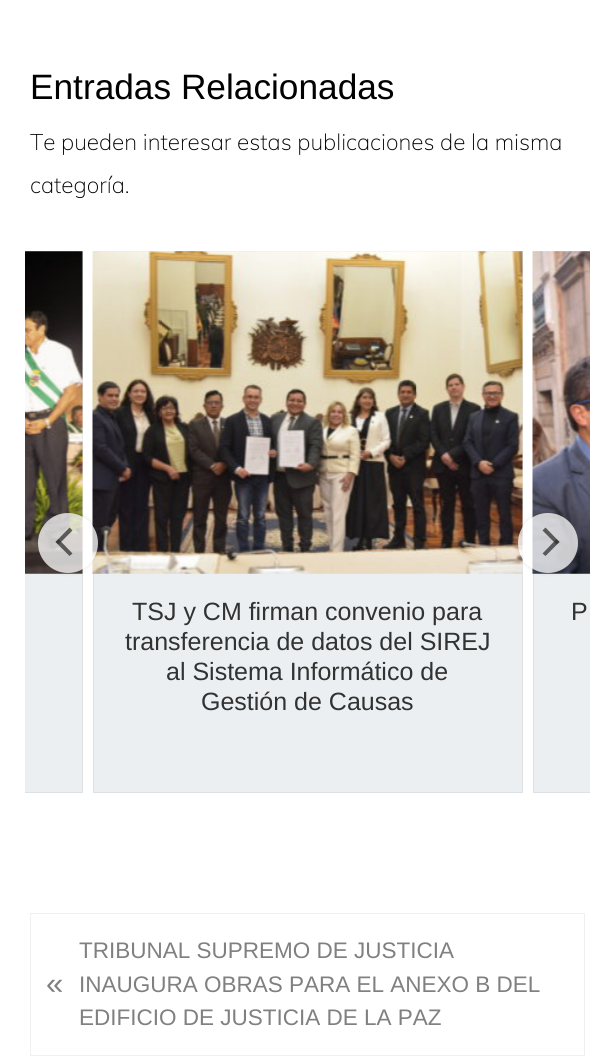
import math
import cairo

surface = cairo.ImageSurface(cairo.Format.RGB24, 615, 1062)
ctx = cairo.Context(surface)
options = cairo.FontOptions()
options.set_hint_metrics(cairo.HintMetrics.OFF)
options.set_hint_style(cairo.HintStyle.NONE)
ctx.set_font_options(options)
ctx.set_miter_limit(4)


def ink(r, g, b):
    ctx.set_source_rgb(r / 255, g / 255, b / 255)


def write(x, y, s, family, size, color, bold=False, italic=False):
    ctx.select_font_face(family, cairo.FontSlant.ITALIC if italic else cairo.FontSlant.NORMAL, cairo.FontWeight.BOLD if bold else cairo.FontWeight.NORMAL)
    ctx.set_font_size(size)
    ink(*color)
    ctx.move_to(x, y)
    ctx.show_text(s)


def block(x, y, w, h, *color):
    ink(*color)
    ctx.rectangle(x, y, w, h)
    ctx.fill()


def round_path(x, y, w, h, r):
    ctx.new_sub_path()
    for i, (u, v) in enumerate([(x + w - r, y + h - r), (x + r, y + h - r), (x + r, y + r), (x + w - r, y + r)]):
        ctx.arc(u, v, r, i * math.pi / 2, (i + 1) * math.pi / 2)
    ctx.close_path()


def blur_box(x, y, w, h, r, blur, alpha):
    ctx.push_group_with_content(cairo.Content.ALPHA)
    ctx.set_operator(cairo.Operator.SOURCE)
    for i in range(15, -16, -2):
        e = blur * i / 6
        if min(w, h) + 2 * e > 0:
            ctx.set_source_rgba(0, 0, 0, alpha * math.erfc((i - 1) / 8.5) / 2)
            round_path(x - e, y - e, w + 2 * e, h + 2 * e, max(0, min(r + e + blur * .6, min(w, h) / 2 + e)))
            ctx.fill()
    ctx.mask(ctx.pop_group())


def paste(path, x, y, w, h):
    ctx.save()
    ctx.set_source_surface(cairo.ImageSurface.create_from_png(path), x, y)
    ctx.rectangle(x, y, w, h)
    ctx.fill()
    ctx.restore()


s1 = dict(family="Liberation Sans", size=35.25, color=(0, 0, 0))
s2 = dict(family="Muli ExtraLight", size=22.5, color=(0, 0, 0))
s3 = dict(family="Liberation Sans", size=25, color=(50, 50, 50))
s4 = dict(family="Liberation Sans", size=22.5, color=(128, 128, 128))
s5 = dict(family="Liberation Sans", size=31, color=(128, 128, 128))

ink(255, 255, 255)
ctx.paint()
write(30, 99, "Entradas Relacionadas", **s1)
write(30, 150, "Te pueden interesar estas publicaciones de la misma", **s2)
write(30, 193, "categoría.", **s2)
block(25, 573, 57, 219, 236, 239, 241)
ctx.save()
ctx.rectangle(25, 251, 565, 582)
ctx.clip()
ctx.rectangle(-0.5, 251.5, 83, 541)
ink(222, 225, 227)
ctx.set_line_width(1)
ctx.stroke()
ctx.restore()
paste("pic1.png", 25, 251, 58, 323)
block(94, 573, 428, 219, 236, 239, 241)
ctx.rectangle(93.5, 251.5, 429, 541)
ink(222, 225, 227)
ctx.set_line_width(1)
ctx.stroke()
paste("pic2.png", 92, 251, 431, 323)
ctx.save()
ctx.set_fill_rule(cairo.FillRule.EVEN_ODD)
ctx.new_path()
ctx.move_to(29, 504)
ctx.line_to(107, 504)
ctx.line_to(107, 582)
ctx.line_to(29, 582)
ctx.close_path()
ctx.move_to(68, 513)
ctx.curve_to(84.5, 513, 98, 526.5, 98, 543)
ctx.curve_to(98, 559.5, 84.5, 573, 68, 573)
ctx.curve_to(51.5, 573, 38, 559.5, 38, 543)
ctx.curve_to(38, 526.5, 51.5, 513, 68, 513)
ctx.close_path()
ctx.clip()
ink(65, 64, 66)
blur_box(38, 513, 60, 60, 30, 2.5, 0.15)
ctx.restore()
ctx.set_source_rgba(1, 1, 1, 0.75)
ctx.arc(68, 543, 30, 0, 2 * math.pi)
ctx.fill()
ctx.set_source_rgba(0.196, 0.196, 0.196, 0.75)
ctx.new_path()
ctx.move_to(58.5, 539)
ctx.line_to(72.5, 553.5)
ctx.line_to(69.5, 556)
ctx.line_to(55.5, 542)
ctx.close_path()
ctx.fill()
ctx.new_path()
ctx.move_to(69.5, 527.5)
ctx.line_to(72.5, 530.5)
ctx.line_to(58.5, 544.5)
ctx.line_to(55.5, 542)
ctx.close_path()
ctx.fill()
block(534, 573, 56, 219, 236, 239, 241)
ctx.save()
ctx.rectangle(25, 251, 565, 582)
ctx.clip()
ctx.rectangle(533.5, 251.5, 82, 541)
ink(222, 225, 227)
ctx.stroke()
ctx.restore()
paste("pic3.png", 532, 251, 58, 323)
ctx.save()
ctx.set_fill_rule(cairo.FillRule.EVEN_ODD)
ctx.new_path()
ctx.move_to(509, 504)
ctx.line_to(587, 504)
ctx.line_to(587, 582)
ctx.line_to(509, 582)
ctx.close_path()
ctx.move_to(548, 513)
ctx.curve_to(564.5, 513, 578, 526.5, 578, 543)
ctx.curve_to(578, 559.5, 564.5, 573, 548, 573)
ctx.curve_to(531.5, 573, 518, 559.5, 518, 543)
ctx.curve_to(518, 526.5, 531.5, 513, 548, 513)
ctx.close_path()
ctx.clip()
ink(65, 64, 66)
blur_box(518, 513, 60, 60, 30, 2.5, 0.15)
ctx.restore()
ctx.set_source_rgba(1, 1, 1, 0.75)
ctx.arc(548, 543, 30, 0, 2 * math.pi)
ctx.fill()
ctx.set_source_rgba(0.196, 0.196, 0.196, 0.75)
ctx.new_path()
ctx.move_to(556.5, 544.5)
ctx.line_to(542.5, 530.5)
ctx.line_to(545.5, 527.5)
ctx.line_to(559.5, 542)
ctx.close_path()
ctx.fill()
ctx.new_path()
ctx.move_to(545.5, 556)
ctx.line_to(542.5, 553.5)
ctx.line_to(556.5, 539)
ctx.line_to(559.5, 542)
ctx.close_path()
ctx.fill()
write(132, 620, "TSJ y CM firman convenio para", **s3)
write(125, 650, "transferencia de datos del SIREJ", **s3)
write(166, 680, "al Sistema Informático de", **s3)
write(201, 710, "Gestión de Causas", **s3)
write(571, 620, "P", **s3)
ctx.rectangle(30.5, 913.5, 554, 142)
ink(240, 240, 240)
ctx.stroke()
write(79, 958, "TRIBUNAL SUPREMO DE JUSTICIA", **s4)
write(46, 994, "«", **s5)
write(79, 992, "INAUGURA OBRAS PARA EL ANEXO B DEL", **s4)
write(79, 1025, "EDIFICIO DE JUSTICIA DE LA PAZ", **s4)
surface.write_to_png("screenshot.png")
